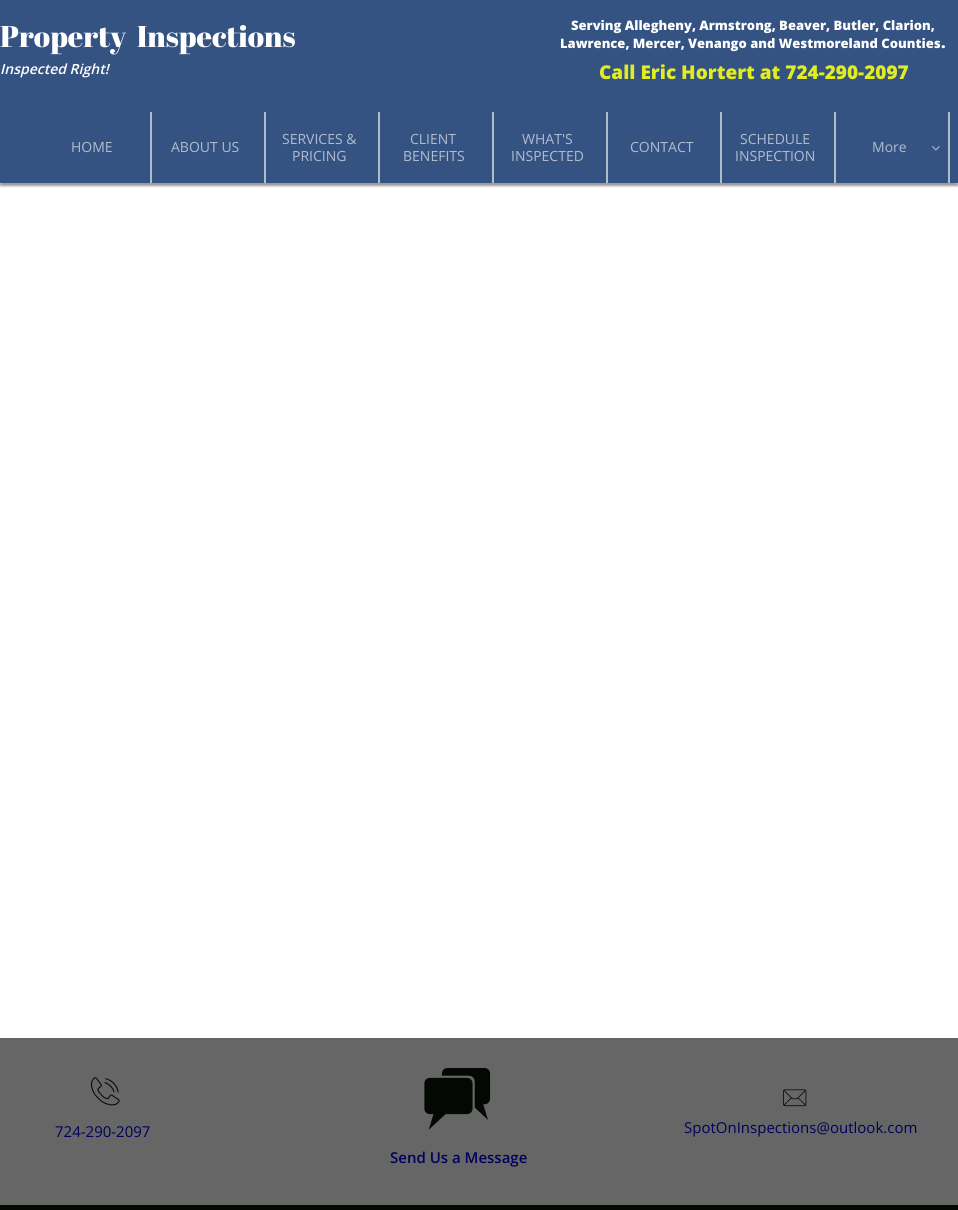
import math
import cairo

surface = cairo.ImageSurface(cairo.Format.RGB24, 958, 1210)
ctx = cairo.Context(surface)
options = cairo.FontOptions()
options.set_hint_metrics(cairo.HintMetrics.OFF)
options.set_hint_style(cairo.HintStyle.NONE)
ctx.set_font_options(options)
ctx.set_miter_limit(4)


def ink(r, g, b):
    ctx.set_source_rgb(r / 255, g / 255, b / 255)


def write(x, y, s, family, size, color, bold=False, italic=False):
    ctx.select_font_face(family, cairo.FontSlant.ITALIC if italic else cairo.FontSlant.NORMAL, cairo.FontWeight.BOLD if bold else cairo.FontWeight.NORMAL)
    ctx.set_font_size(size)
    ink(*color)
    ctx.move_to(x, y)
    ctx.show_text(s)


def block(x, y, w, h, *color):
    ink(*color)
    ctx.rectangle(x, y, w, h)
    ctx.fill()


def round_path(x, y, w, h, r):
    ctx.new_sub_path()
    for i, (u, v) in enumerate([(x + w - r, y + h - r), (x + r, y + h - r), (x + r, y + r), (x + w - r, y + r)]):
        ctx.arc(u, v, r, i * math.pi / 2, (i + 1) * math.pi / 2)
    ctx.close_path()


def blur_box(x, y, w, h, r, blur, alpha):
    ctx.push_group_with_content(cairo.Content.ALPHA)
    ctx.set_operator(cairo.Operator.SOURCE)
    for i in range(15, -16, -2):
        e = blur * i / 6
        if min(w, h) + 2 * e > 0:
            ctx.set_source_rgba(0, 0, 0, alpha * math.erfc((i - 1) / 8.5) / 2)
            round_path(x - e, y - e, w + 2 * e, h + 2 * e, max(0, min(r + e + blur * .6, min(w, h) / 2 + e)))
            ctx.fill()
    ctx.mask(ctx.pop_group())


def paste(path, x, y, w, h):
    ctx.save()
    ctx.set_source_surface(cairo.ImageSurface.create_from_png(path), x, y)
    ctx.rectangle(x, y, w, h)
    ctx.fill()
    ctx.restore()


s1 = dict(family="Abril Fatface", size=30, color=(255, 255, 255))
s2 = dict(family="Open Sans ExtraBold", size=13, color=(255, 255, 255))
s3 = dict(family="Open Sans ExtraBold", size=16, color=(255, 255, 255))
s4 = dict(family="Open Sans SemiBold", size=14, color=(255, 255, 255), italic=True)
s5 = dict(family="Open Sans", size=14, color=(176, 188, 206))
s6 = dict(family="Open Sans ExtraBold", size=19, color=(225, 236, 36))
s7 = dict(family="Open Sans", size=15, color=(0, 0, 93))
s8 = dict(family="Open Sans SemiBold", size=15, color=(0, 0, 93))

ink(255, 255, 255)
ctx.paint()
block(0, 0, 958, 183, 53, 83, 130)
ctx.save()
ctx.rectangle(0, 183, 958, 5)
ctx.clip()
ink(0, 0, 0)
blur_box(0, 3, 958, 183, 0, 1, 0.39)
ctx.restore()
write(0, 47, "Property  Inspections", **s1)
write(571, 30, "Serving Allegheny, Armstrong, Beaver, Butler, Clarion,", **s2)
write(560, 48, "Lawrence, Mercer, Venango and Westmoreland Counties", **s2)
write(941, 48, ".", **s3)
write(0, 74, "Inspected Right!", **s4)
block(150, 112, 2, 71, 176, 188, 206)
write(71, 152, "HOME", **s5)
block(264, 112, 2, 71, 176, 188, 206)
write(171, 152, "ABOUT US", **s5)
block(378, 112, 2, 71, 176, 188, 206)
write(282, 144, "SERVICES &", **s5)
write(292, 161, "PRICING", **s5)
block(492, 112, 2, 71, 176, 188, 206)
write(410, 144, "CLIENT", **s5)
write(403, 161, "BENEFITS", **s5)
block(606, 112, 2, 71, 176, 188, 206)
write(522, 144, "WHAT'S", **s5)
write(511, 161, "INSPECTED", **s5)
block(720, 112, 2, 71, 176, 188, 206)
write(630, 152, "CONTACT", **s5)
block(834, 112, 2, 71, 176, 188, 206)
write(740, 144, "SCHEDULE", **s5)
write(735, 161, "INSPECTION", **s5)
block(948, 112, 2, 71, 176, 188, 206)
write(872, 152, "More", **s5)
paste("pic1.png", 932, 146, 8, 5)
write(599, 79, "Call Eric Hortert at 724-290-2097", **s6)
block(0, 1038, 958, 167, 102, 102, 102)
paste("pic2.png", 91, 1077, 29, 29)
paste("pic3.png", 424, 1068, 67, 62)
paste("pic4.png", 783, 1089, 24, 18)
write(55, 1137, "724-290-2097", **s7)
write(684, 1133, "SpotOnInspections@outlook.com", **s7)
write(390, 1163, "Send Us a Message", **s8)
block(0, 1205, 958, 5, 3, 8, 2)
surface.write_to_png("screenshot.png")
